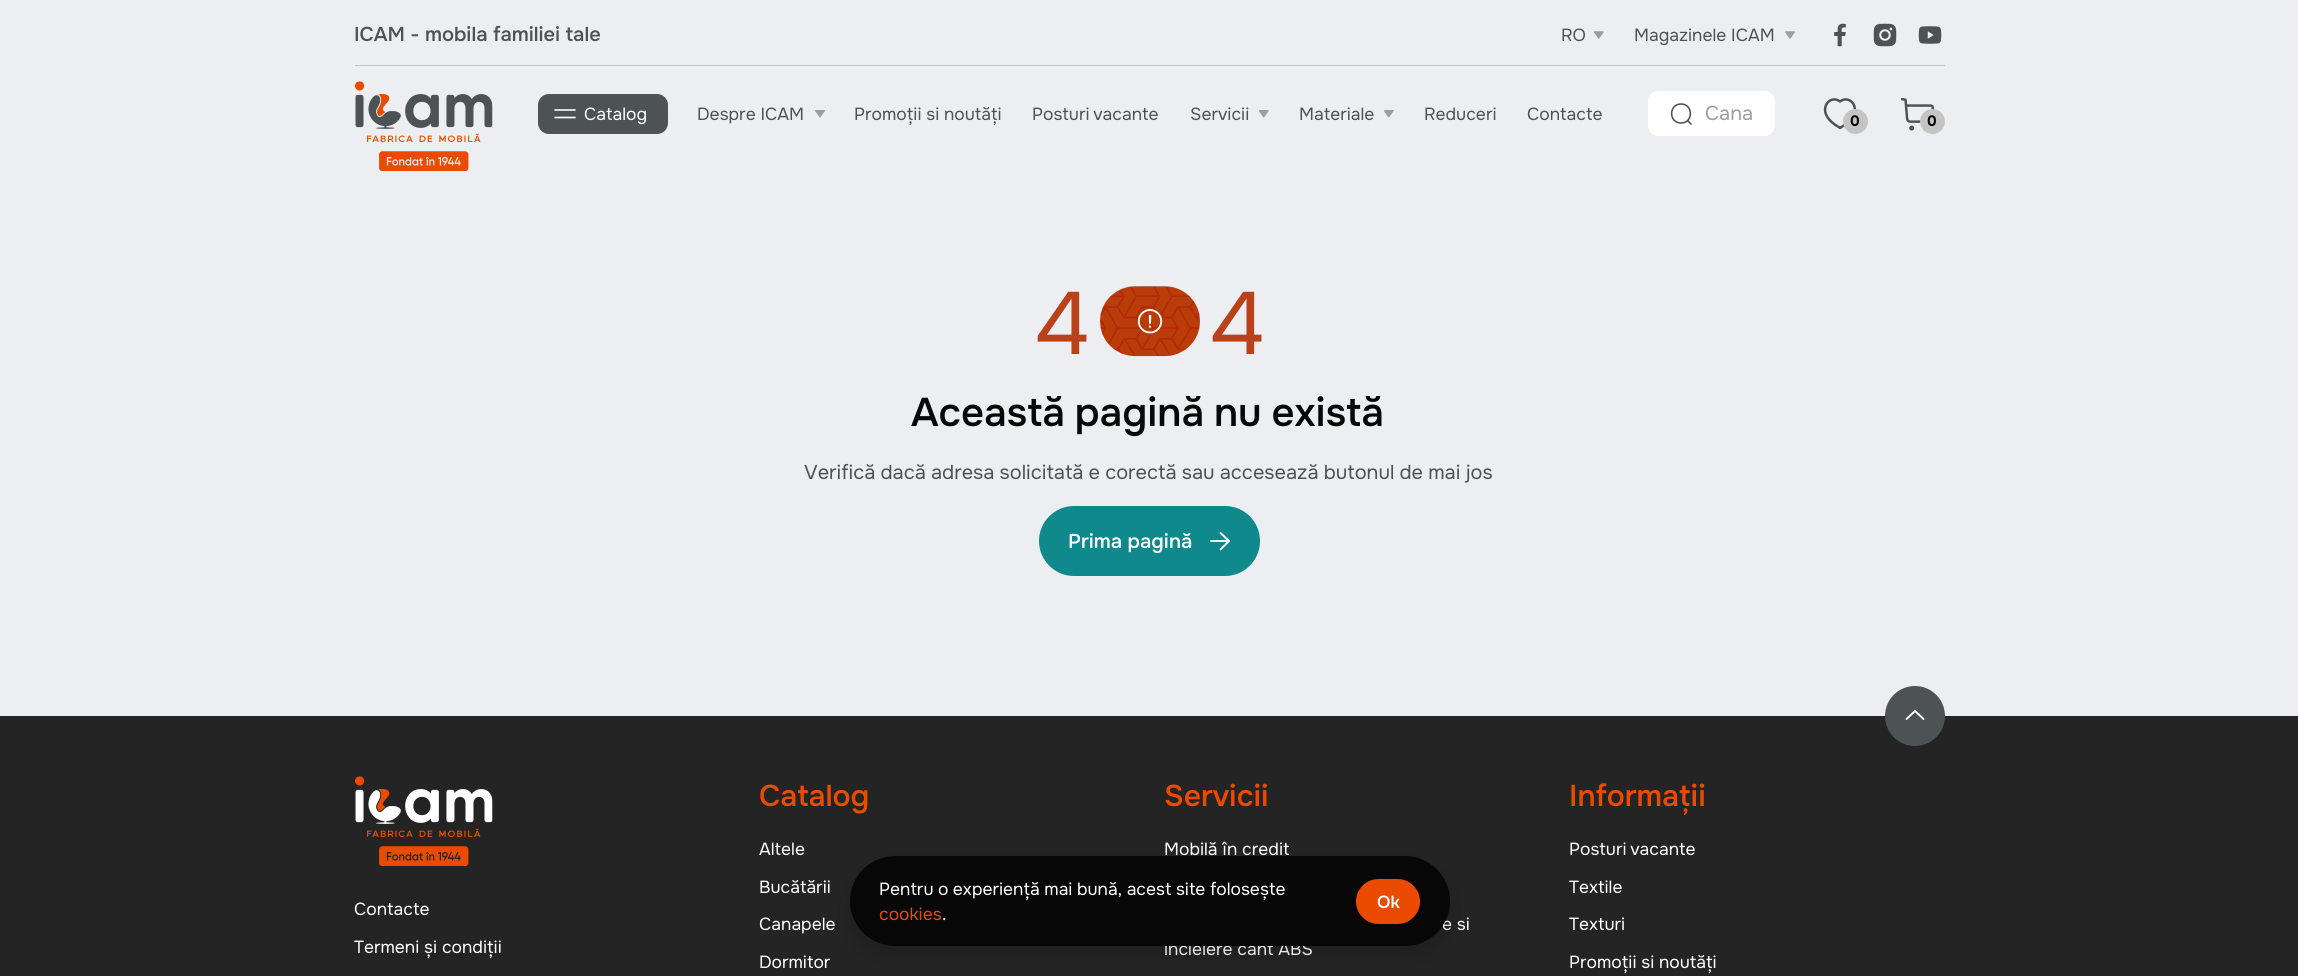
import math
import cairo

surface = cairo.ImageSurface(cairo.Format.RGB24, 2298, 976)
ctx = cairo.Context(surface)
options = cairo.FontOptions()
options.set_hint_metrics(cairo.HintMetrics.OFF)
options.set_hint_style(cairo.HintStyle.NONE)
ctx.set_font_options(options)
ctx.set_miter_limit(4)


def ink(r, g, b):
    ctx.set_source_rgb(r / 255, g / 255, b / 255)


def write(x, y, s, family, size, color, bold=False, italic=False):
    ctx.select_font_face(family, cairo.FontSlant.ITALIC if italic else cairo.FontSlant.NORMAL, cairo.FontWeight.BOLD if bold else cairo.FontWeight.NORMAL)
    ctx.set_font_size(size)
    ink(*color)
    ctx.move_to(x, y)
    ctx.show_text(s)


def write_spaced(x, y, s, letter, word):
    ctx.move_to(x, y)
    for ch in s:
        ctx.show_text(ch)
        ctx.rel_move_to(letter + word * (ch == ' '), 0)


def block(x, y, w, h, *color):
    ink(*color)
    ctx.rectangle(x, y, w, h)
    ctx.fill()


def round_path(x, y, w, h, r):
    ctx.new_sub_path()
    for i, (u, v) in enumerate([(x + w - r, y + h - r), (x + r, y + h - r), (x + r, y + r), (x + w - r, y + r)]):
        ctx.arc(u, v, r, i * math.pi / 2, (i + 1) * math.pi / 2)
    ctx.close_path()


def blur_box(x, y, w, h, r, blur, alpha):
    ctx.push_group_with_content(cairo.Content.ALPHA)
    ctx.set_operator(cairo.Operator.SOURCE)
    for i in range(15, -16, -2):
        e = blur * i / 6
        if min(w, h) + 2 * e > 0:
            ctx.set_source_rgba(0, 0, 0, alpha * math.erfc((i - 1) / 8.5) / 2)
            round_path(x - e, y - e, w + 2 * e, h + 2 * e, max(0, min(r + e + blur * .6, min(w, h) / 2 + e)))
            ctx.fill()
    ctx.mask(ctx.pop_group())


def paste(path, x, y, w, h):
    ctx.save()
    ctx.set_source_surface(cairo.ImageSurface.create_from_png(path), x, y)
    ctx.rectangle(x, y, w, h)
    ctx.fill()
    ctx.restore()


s1 = dict(family="Onest Medium", size=20, color=(77, 83, 84))
s2 = dict(family="Onest", size=17.5, color=(77, 83, 84))
s3 = dict(family="Onest", size=17.5, color=(255, 255, 255))
s4 = dict(family="Onest", size=20, color=(156, 157, 159))
s5 = dict(family="Onest", size=15, color=(7, 7, 7), bold=True)
s6 = dict(family="Onest", size=88, color=(186, 66, 27))
s7 = dict(family="Onest Medium", size=20, color=(255, 255, 255))
s8 = dict(family="Onest Medium", size=30, color=(235, 75, 0))
s9 = dict(family="Onest", size=17.5, color=(235, 75, 0))
s10 = dict(family="Onest Medium", size=17.5, color=(255, 255, 255))

ink(36, 36, 36)
ctx.paint()
block(0, 0, 2298, 716, 236, 238, 242)
block(355, 65, 1590, 1, 196, 196, 196)
write(354, 41, "ICAM - mobila familiei tale", **s1)
write(1561, 41, "RO", **s2)
paste("pic1.png", 1594, 31, 10, 8)
write(1634, 41, "Magazinele ICAM", **s2)
paste("pic2.png", 1785, 31, 10, 8)
paste("pic3.png", 1834, 23, 12, 24)
paste("pic4.png", 1873, 23, 24, 24)
paste("pic5.png", 1918, 26, 24, 18)
paste("pic6.png", 355, 81, 138, 90)
round_path(538, 94, 130, 40, 11)
ctx.fill()
ctx.new_path()
ctx.move_to(575, 110)
ctx.line_to(555, 110)
ctx.move_to(575, 117.5)
ctx.line_to(555, 117.5)
ink(255, 255, 255)
ctx.set_line_width(1.6)
ctx.set_line_cap(cairo.LineCap.ROUND)
ctx.stroke()
write(584, 120, "Catalog", **s3)
write(697, 120, "Despre ICAM", **s2)
paste("pic7.png", 815, 110, 10, 8)
write(854, 120, "Promoții si noutăți", **s2)
write_spaced(1032, 120, "Posturi vacante", 0, -1)
write(1190, 120, "Servicii", **s2)
paste("pic8.png", 1259, 110, 10, 8)
write(1299, 120, "Materiale", **s2)
paste("pic8.png", 1384, 110, 10, 8)
write(1424, 120, "Reduceri", **s2)
write(1527, 120, "Contacte", **s2)
ink(255, 255, 255)
round_path(1648, 91, 127, 45, 11)
ctx.fill()
ctx.new_path()
ctx.move_to(1681, 123)
ctx.curve_to(1693.5, 123, 1693.5, 104, 1681, 104)
ctx.curve_to(1668.5, 104, 1668.5, 123, 1681, 123)
ctx.close_path()
ctx.move_to(1687.5, 120.5)
ctx.line_to(1691, 124)
ink(77, 83, 84)
ctx.set_line_join(cairo.LineJoin.ROUND)
ctx.stroke()
round_path(1648.5, 91.5, 126, 44, 10.5)
ink(255, 255, 255)
ctx.set_line_width(1)
ctx.set_line_cap(cairo.LineCap.BUTT)
ctx.set_line_join(cairo.LineJoin.MITER)
ctx.stroke()
write(1705, 120, "Cana", **s4)
ctx.new_path()
ctx.move_to(1839.5, 127.5)
ctx.curve_to(1834, 124.5, 1827.5, 119.5, 1825.5, 113)
ctx.curve_to(1823, 103.5, 1832, 95.5, 1840, 101.5)
ctx.curve_to(1848, 95.5, 1857, 103.5, 1854.5, 113)
ctx.curve_to(1852.5, 120, 1845.5, 124.5, 1840, 128)
ctx.close_path()
ink(77, 83, 84)
ctx.set_line_width(2.5)
ctx.set_line_cap(cairo.LineCap.ROUND)
ctx.set_line_join(cairo.LineJoin.ROUND)
ctx.stroke()
ink(196, 196, 196)
ctx.arc(1855.5, 121.5, 12.5, 0, 2 * math.pi)
ctx.fill()
write(1850, 126, "0", **s5)
paste("pic9.png", 1900, 97, 35, 34)
ink(196, 196, 196)
ctx.arc(1932.5, 121.5, 12.5, 0, 2 * math.pi)
ctx.fill()
write(1927, 126, "0", **s5)
write(1034, 354, "4", **s6)
paste("pic10.png", 1100, 286, 100, 71)
ctx.set_source_rgba(0, 0, 0, 0.2)
round_path(1100, 286, 100, 70, 35)
ctx.fill()
paste("pic11.png", 1137, 309, 26, 25)
write(1209, 354, "4", **s6)
ctx.select_font_face("Onest Medium")
ctx.set_font_size(40)
ink(7, 7, 7)
write_spaced(911, 426, "Această pagină nu există", 0, -1)
ctx.select_font_face("Onest")
ctx.set_font_size(20)
ink(77, 83, 84)
write_spaced(804, 479, "Verifică dacă adresa solicitată e corectă sau accesează butonul de mai jos", 0, -0.25)
ink(15, 137, 139)
round_path(1039, 506, 221, 70, 35)
ctx.fill()
write(1068, 548, "Prima pagină", **s7)
ctx.new_path()
ctx.move_to(1220.5, 549.5)
ctx.line_to(1229, 541)
ctx.line_to(1220.5, 533)
ctx.move_to(1228, 541)
ctx.line_to(1211, 541)
ctx.set_line_width(1.9)
ctx.stroke()
ink(77, 83, 84)
ctx.arc(1915, 716, 30, 0, 2 * math.pi)
ctx.fill()
ctx.new_path()
ctx.move_to(1906.5, 719)
ctx.line_to(1915, 711)
ctx.line_to(1923.5, 719)
ink(255, 255, 255)
ctx.stroke()
paste("pic12.png", 355, 776, 138, 90)
write(354, 915, "Contacte", **s3)
write(354, 953, "Termeni și condiții", **s3)
write(759, 806, "Catalog", **s8)
write(759, 855, "Altele", **s3)
write(759, 893, "Bucătării", **s3)
write(759, 930, "Canapele", **s3)
write(759, 968, "Dormitor", **s3)
write(1164, 806, "Servicii", **s8)
write(1164, 855, "Mobilă în credit", **s3)
write(1442, 930, "e si", **s3)
write(1164, 955, "incleiere cant ABS", **s3)
write(1569, 806, "Informații", **s8)
ctx.select_font_face("Onest")
ctx.set_font_size(17.5)
ink(255, 255, 255)
write_spaced(1569, 855, "Posturi vacante", 0, -1)
write(1569, 893, "Textile", **s3)
write(1569, 930, "Texturi", **s3)
write(1569, 968, "Promoții si noutăți", **s3)
ink(0, 0, 0)
blur_box(850, 866, 600, 90, 45, 10, 0.15)
ink(7, 7, 7)
round_path(850, 856, 600, 90, 45)
ctx.fill()
ink(255, 255, 255)
write_spaced(879, 895, "Pentru o experiență mai bună, acest site folosește", 0, -0.25)
write(879, 920, "cookies", **s9)
write(942, 920, ".", **s3)
ink(235, 75, 0)
round_path(1356, 879, 64, 45, 22.5)
ctx.fill()
write(1377, 908, "Ok", **s10)
surface.write_to_png("screenshot.png")
